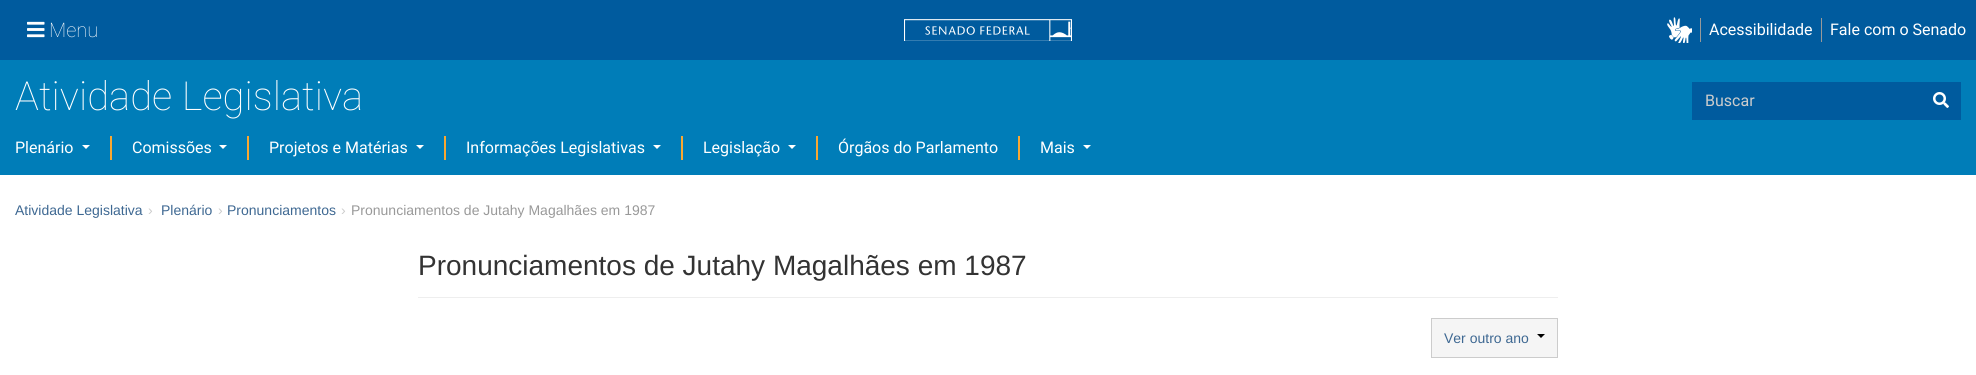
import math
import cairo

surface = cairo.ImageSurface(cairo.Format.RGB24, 1976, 375)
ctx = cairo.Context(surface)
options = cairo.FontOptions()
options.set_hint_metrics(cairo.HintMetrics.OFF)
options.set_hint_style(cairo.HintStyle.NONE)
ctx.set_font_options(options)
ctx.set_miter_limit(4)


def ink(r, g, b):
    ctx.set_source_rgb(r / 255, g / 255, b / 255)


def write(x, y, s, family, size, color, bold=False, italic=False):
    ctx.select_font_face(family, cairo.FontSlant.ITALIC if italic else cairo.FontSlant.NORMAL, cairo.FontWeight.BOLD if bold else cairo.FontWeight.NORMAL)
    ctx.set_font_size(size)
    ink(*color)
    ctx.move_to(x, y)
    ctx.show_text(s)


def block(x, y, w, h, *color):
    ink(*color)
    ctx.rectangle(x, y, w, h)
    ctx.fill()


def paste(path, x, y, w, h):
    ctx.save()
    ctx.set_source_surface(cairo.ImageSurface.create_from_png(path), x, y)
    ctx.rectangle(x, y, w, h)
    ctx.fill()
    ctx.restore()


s1 = dict(family="Roboto Thin", size=20, color=(255, 255, 255))
s2 = dict(family="Roboto", size=16, color=(255, 255, 255))
s3 = dict(family="Roboto Thin", size=40, color=(255, 255, 255))
s4 = dict(family="Roboto", size=16, color=(204, 204, 204))
s5 = dict(family="Liberation Sans", size=14, color=(62, 104, 146))
s6 = dict(family="Liberation Sans", size=14, color=(204, 204, 204))
s7 = dict(family="Liberation Sans", size=14, color=(153, 153, 153))
s8 = dict(family="Liberation Sans", size=28, color=(51, 51, 51))

ink(255, 255, 255)
ctx.paint()
block(0, 0, 1976, 60, 0, 91, 158)
paste("pic1.png", 27, 21, 18, 17)
write(49, 37, "Menu", **s1)
paste("pic2.png", 904, 19, 168, 22)
paste("pic3.png", 1667, 17, 25, 26)
block(1700, 18, 1, 24, 153, 153, 153)
write(1709, 35, "Acessibilidade", **s2)
block(1821, 18, 1, 24, 153, 153, 153)
write(1830, 35, "Fale com o Senado", **s2)
block(0, 60, 1976, 115, 0, 125, 184)
write(15, 110, "Atividade Legislativa", **s3)
block(1692, 82, 269, 38, 0, 91, 158)
write(1705, 106, "Buscar", **s4)
paste("pic4.png", 1933, 92, 16, 16)
write(15, 153, "Plenário", **s2)
ctx.new_path()
ctx.move_to(82, 145)
ctx.line_to(90, 145)
ctx.line_to(86, 149)
ctx.close_path()
ctx.fill()
block(110, 136, 2, 24, 250, 167, 49)
write(132, 153, "Comissões", **s2)
ctx.new_path()
ctx.move_to(219, 145)
ctx.line_to(227, 145)
ctx.line_to(223, 149)
ctx.close_path()
ctx.fill()
block(247, 136, 2, 24, 250, 167, 49)
write(269, 153, "Projetos e Matérias", **s2)
ctx.new_path()
ctx.move_to(416, 145)
ctx.line_to(424, 145)
ctx.line_to(420, 149)
ctx.close_path()
ctx.fill()
block(444, 136, 2, 24, 250, 167, 49)
write(466, 153, "Informações Legislativas", **s2)
ctx.new_path()
ctx.move_to(653, 145)
ctx.line_to(661, 145)
ctx.line_to(657, 149)
ctx.close_path()
ctx.fill()
block(681, 136, 2, 24, 250, 167, 49)
write(703, 153, "Legislação", **s2)
ctx.new_path()
ctx.move_to(788, 145)
ctx.line_to(796, 145)
ctx.line_to(792, 149)
ctx.close_path()
ctx.fill()
block(816, 136, 2, 24, 250, 167, 49)
write(838, 153, "Órgãos do Parlamento", **s2)
block(1018, 136, 2, 24, 250, 167, 49)
write(1040, 153, "Mais", **s2)
ctx.new_path()
ctx.move_to(1083, 145)
ctx.line_to(1091, 145)
ctx.line_to(1087, 149)
ctx.close_path()
ctx.fill()
write(15, 215, "Atividade Legislativa", **s5)
write(148, 215, "›", **s6)
write(161, 215, "Plenário", **s5)
write(218, 215, "›", **s6)
write(227, 215, "Pronunciamentos", **s5)
write(341, 215, "›", **s6)
write(351, 215, "Pronunciamentos de Jutahy Magalhães em 1987", **s7)
block(418, 297, 1140, 1, 238, 238, 238)
write(418, 275, "Pronunciamentos de Jutahy Magalhães em 1987", **s8)
ink(245, 245, 245)
ctx.rectangle(1431.5, 318.5, 126, 39)
ctx.fill_preserve()
ink(204, 204, 204)
ctx.set_line_width(1)
ctx.stroke()
write(1444, 343, "Ver outro ano", **s5)
ink(0, 0, 0)
ctx.new_path()
ctx.move_to(1537, 334)
ctx.line_to(1545, 334)
ctx.line_to(1541, 338)
ctx.close_path()
ctx.fill()
surface.write_to_png("screenshot.png")
